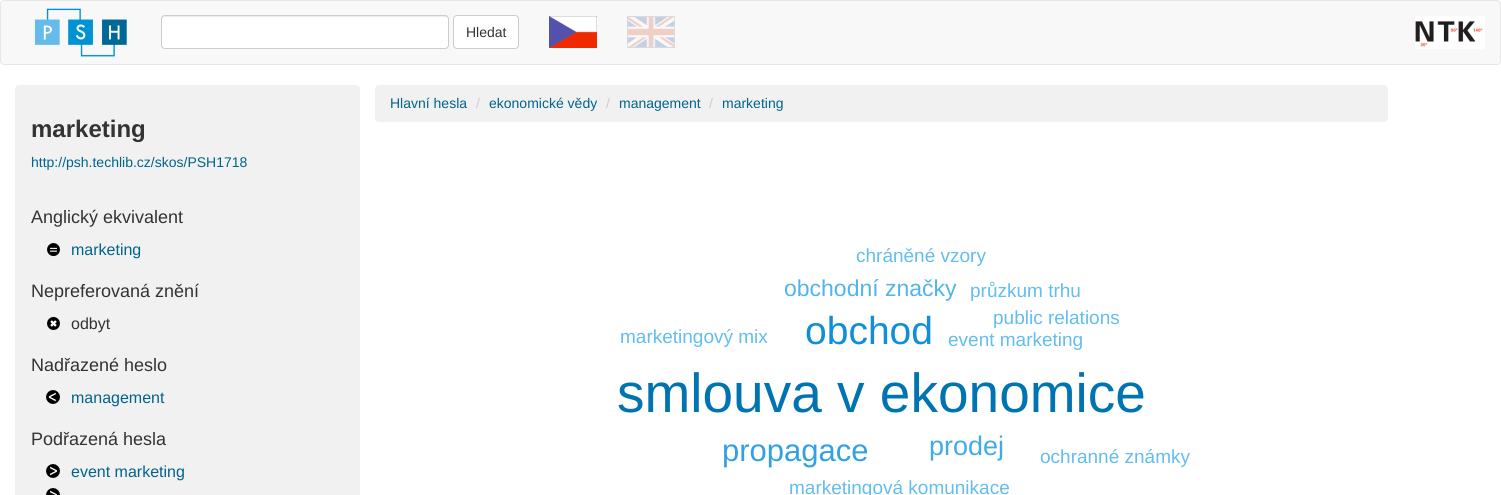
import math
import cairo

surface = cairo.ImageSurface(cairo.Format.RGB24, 1501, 495)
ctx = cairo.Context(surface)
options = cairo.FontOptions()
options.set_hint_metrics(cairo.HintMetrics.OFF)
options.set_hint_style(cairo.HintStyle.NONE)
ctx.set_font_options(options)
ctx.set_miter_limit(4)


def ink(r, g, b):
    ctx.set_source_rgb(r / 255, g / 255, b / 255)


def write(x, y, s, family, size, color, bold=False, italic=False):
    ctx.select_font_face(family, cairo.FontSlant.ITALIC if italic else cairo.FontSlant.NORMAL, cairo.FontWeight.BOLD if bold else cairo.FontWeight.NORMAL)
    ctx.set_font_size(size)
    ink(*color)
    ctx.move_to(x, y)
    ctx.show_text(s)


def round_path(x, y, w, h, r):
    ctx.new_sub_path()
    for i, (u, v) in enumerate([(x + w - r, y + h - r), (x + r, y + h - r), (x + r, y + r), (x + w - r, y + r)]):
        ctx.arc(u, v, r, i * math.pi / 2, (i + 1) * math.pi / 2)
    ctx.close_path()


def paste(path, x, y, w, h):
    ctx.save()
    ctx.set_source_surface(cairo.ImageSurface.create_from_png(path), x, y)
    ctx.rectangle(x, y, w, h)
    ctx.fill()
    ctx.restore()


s1 = dict(family="Liberation Sans", size=14, color=(51, 51, 51))
s2 = dict(family="Liberation Sans", size=24, color=(51, 51, 51), bold=True)
s3 = dict(family="Liberation Sans", size=14, color=(0, 99, 140))
s4 = dict(family="Liberation Sans", size=18, color=(51, 51, 51))
s5 = dict(family="Liberation Sans", size=16, color=(0, 99, 140))
s6 = dict(family="Liberation Sans", size=16, color=(51, 51, 51))
s7 = dict(family="Liberation Sans", size=14, color=(204, 204, 204))
s8 = dict(family="Liberation Sans", size=19, color=(99, 189, 239))
s9 = dict(family="Liberation Sans", size=23, color=(83, 180, 235))
s10 = dict(family="Liberation Sans", size=39, color=(17, 142, 218))
s11 = dict(family="Liberation Sans", size=55, color=(0, 116, 177))
s12 = dict(family="Liberation Sans", size=31, color=(50, 161, 227))
s13 = dict(family="Liberation Sans", size=27, color=(66, 170, 231))

ink(255, 255, 255)
ctx.paint()
ink(248, 248, 248)
round_path(0.5, 0.5, 1500, 64, 3.5)
ctx.fill_preserve()
ink(231, 231, 231)
ctx.set_line_width(1)
ctx.stroke()
paste("pic1.png", 34, 8, 93, 49)
ink(255, 255, 255)
round_path(161, 15, 288, 34, 4)
ctx.fill()
ink(236, 236, 236)
ctx.new_path()
ctx.move_to(165, 17)
ctx.line_to(445, 17)
ctx.curve_to(447, 17, 448, 18, 448, 20)
ctx.curve_to(448, 18, 447, 16, 445, 16)
ctx.line_to(165, 16)
ctx.curve_to(163, 16, 162, 18, 162, 20)
ctx.curve_to(162, 18, 163, 17, 165, 17)
ctx.close_path()
ctx.fill()
round_path(161.5, 15.5, 287, 33, 3.5)
ink(204, 204, 204)
ctx.stroke()
ink(255, 255, 255)
round_path(453.5, 15.5, 65, 33, 3.5)
ctx.fill_preserve()
ink(204, 204, 204)
ctx.stroke()
write(466, 37, "Hledat", **s1)
paste("pic2.png", 549, 16, 48, 32)
paste("pic3.png", 627, 16, 48, 32)
paste("pic4.png", 1415, 16, 70, 33)
ink(241, 241, 241)
round_path(15, 85, 345, 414, 4)
ctx.fill()
write(31, 137, "marketing", **s2)
write(31, 167, "http://psh.techlib.cz/skos/PSH1718", **s3)
write(31, 223, "Anglický ekvivalent", **s4)
paste("pic5.png", 47, 243, 13, 14)
write(71, 255, "marketing", **s5)
write(31, 297, "Nepreferovaná znění", **s4)
paste("pic6.png", 47, 316, 13, 14)
write(71, 329, "odbyt", **s6)
write(31, 371, "Nadřazené heslo", **s4)
paste("pic7.png", 46, 390, 14, 14)
write(71, 403, "management", **s5)
write(31, 445, "Podřazená hesla", **s4)
paste("pic8.png", 46, 464, 14, 14)
write(71, 477, "event marketing", **s5)
paste("pic9.png", 46, 488, 14, 7)
ink(241, 241, 241)
round_path(375, 85, 1013, 37, 4)
ctx.fill()
write(390, 108, "Hlavní hesla", **s3)
write(476, 108, "/", **s7)
write(489, 108, "ekonomické vědy", **s3)
write(606, 108, "/", **s7)
write(619, 108, "management", **s3)
write(709, 108, "/", **s7)
write(722, 108, "marketing", **s3)
write(856, 262, "chráněné vzory", **s8)
write(784, 296, "obchodní značky", **s9)
write(970, 297, "průzkum trhu", **s8)
write(620, 343, "marketingový mix", **s8)
write(805, 344, "obchod", **s10)
write(993, 324, "public relations", **s8)
write(948, 346, "event marketing", **s8)
write(617, 412, "smlouva v ekonomice", **s11)
write(722, 461, "propagace", **s12)
write(929, 455, "prodej", **s13)
write(1040, 463, "ochranné známky", **s8)
write(789, 494, "marketingová komunikace", **s8)
surface.write_to_png("screenshot.png")
